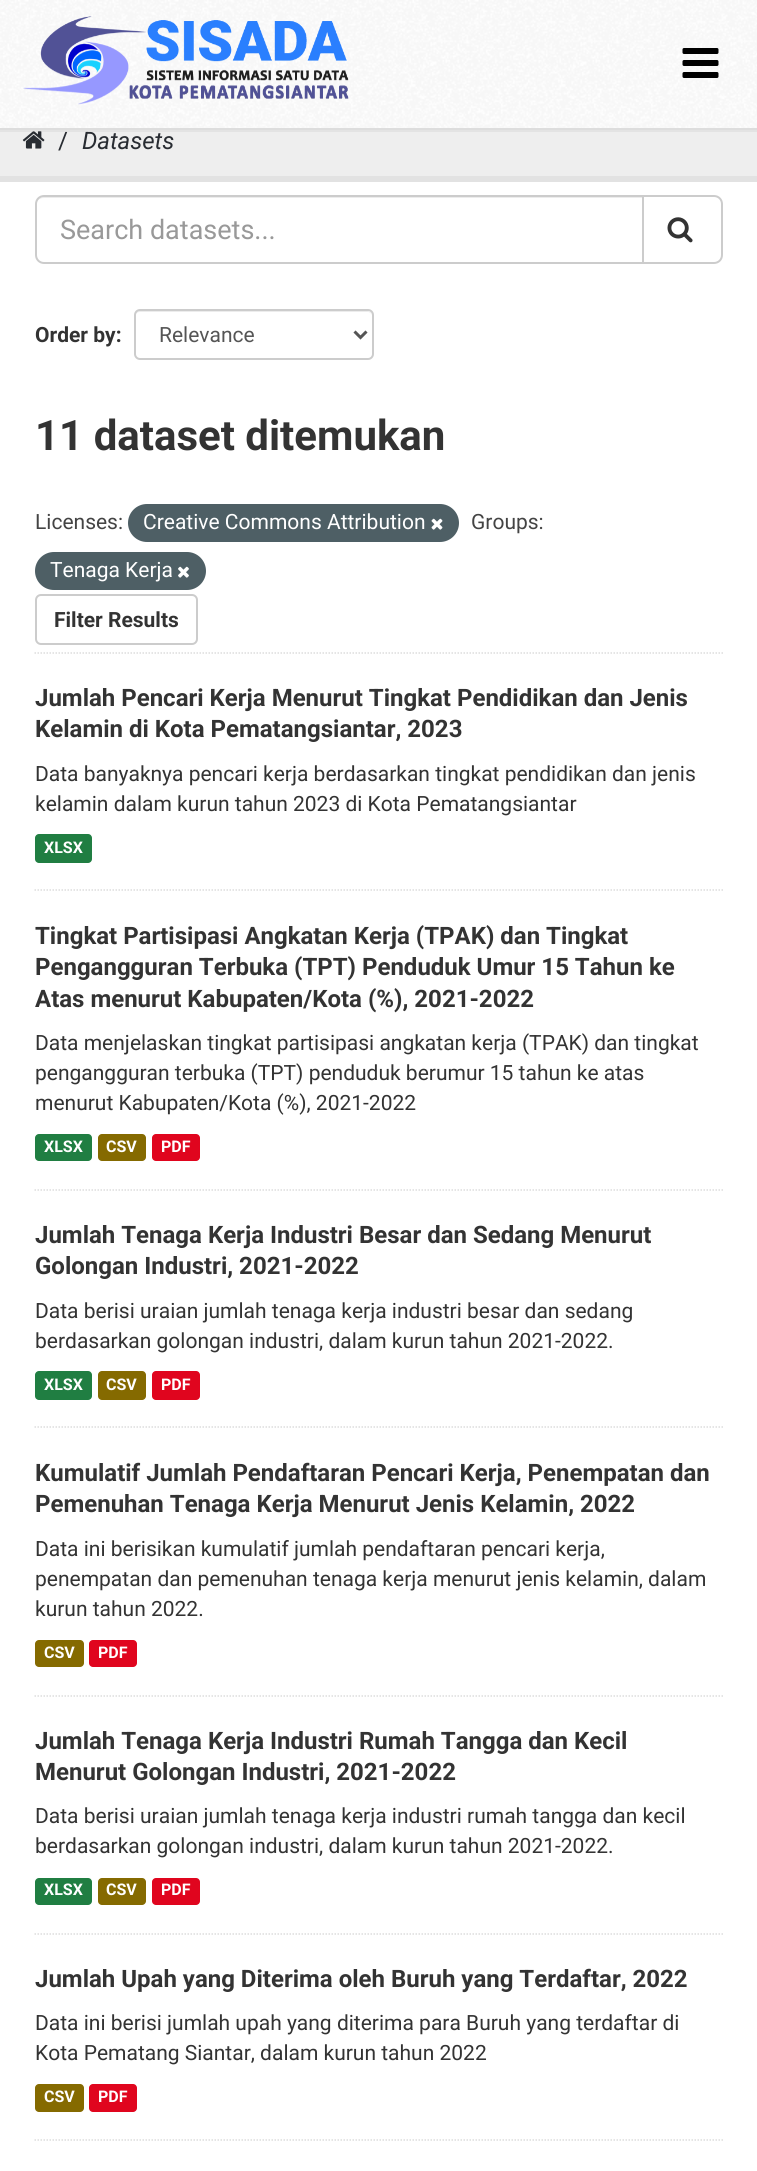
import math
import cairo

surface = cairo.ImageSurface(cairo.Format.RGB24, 757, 2171)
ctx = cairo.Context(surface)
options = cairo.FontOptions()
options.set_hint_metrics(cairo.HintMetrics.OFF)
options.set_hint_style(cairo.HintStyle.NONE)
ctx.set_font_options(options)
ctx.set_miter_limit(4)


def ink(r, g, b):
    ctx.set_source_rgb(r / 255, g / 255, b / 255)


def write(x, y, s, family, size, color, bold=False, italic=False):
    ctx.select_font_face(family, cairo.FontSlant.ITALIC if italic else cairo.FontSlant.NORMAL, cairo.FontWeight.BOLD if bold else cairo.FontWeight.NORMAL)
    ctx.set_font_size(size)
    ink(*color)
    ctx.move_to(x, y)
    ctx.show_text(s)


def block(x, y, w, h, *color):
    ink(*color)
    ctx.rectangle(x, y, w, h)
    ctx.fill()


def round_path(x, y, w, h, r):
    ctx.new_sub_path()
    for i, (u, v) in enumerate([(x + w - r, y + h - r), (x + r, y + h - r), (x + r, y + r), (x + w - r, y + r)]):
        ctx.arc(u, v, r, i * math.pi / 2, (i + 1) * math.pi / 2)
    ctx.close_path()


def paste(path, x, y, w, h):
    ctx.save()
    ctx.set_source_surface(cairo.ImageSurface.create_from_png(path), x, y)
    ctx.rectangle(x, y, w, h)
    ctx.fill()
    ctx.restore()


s1 = dict(family="Roboto", size=24, color=(40, 44, 50))
s2 = dict(family="Roboto", size=24, color=(40, 44, 50), italic=True)
s3 = dict(family="Roboto", size=27, color=(153, 153, 153))
s4 = dict(family="Roboto", size=21, color=(51, 51, 51), bold=True)
s5 = dict(family="Roboto", size=21, color=(85, 85, 85))
s6 = dict(family="Roboto", size=42, color=(51, 51, 51), bold=True)
s7 = dict(family="Roboto", size=21, color=(68, 68, 68))
s8 = dict(family="Roboto", size=21, color=(255, 255, 255))
s9 = dict(family="Roboto", size=24, color=(51, 51, 51), bold=True)
s10 = dict(family="Roboto", size=21, color=(51, 51, 51))
s11 = dict(family="Roboto", size=16, color=(255, 255, 255), bold=True)

ink(238, 238, 238)
ctx.paint()
paste("pic4.png", 22, 131, 23, 18)
write(58, 149, "/", **s1)
write(82, 149, "Datasets", **s2)
ctx.rectangle(-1.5, -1.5, 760, 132)
ctx.set_source_rgba(0, 0, 0, 0.05)
ctx.set_line_width(3)
ctx.stroke()
block(0, 0, 757, 128, 255, 255, 255)
paste("pic1.png", 0, 0, 757, 128)
block(0, 128, 757, 2, 221, 221, 221)
paste("pic2.png", 23, 16, 326, 89)
paste("pic3.png", 682, 48, 37, 30)
ctx.rectangle(-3, 179, 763, 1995)
ink(226, 226, 226)
ctx.set_line_width(6)
ctx.stroke()
block(0, 182, 757, 1989, 255, 255, 255)
ctx.new_path()
ctx.move_to(34.5, 653)
ctx.line_to(723, 653)
ink(221, 221, 221)
ctx.set_line_width(1.5)
ctx.set_dash([1.5, 1.5])
ctx.stroke()
ink(236, 236, 236)
ctx.new_path()
ctx.move_to(44, 198)
ctx.line_to(642, 198)
ctx.line_to(642, 197)
ctx.line_to(44, 197)
ctx.curve_to(39, 197, 36, 201, 36, 206)
ctx.curve_to(36, 201, 39, 198, 44, 198)
ctx.close_path()
ctx.fill()
ctx.new_path()
ctx.move_to(44, 196)
ctx.line_to(643, 196)
ctx.line_to(643, 263)
ctx.line_to(44, 263)
ctx.curve_to(39.5, 263, 36, 259.5, 36, 255)
ctx.line_to(36, 204)
ctx.curve_to(36, 199.5, 39.5, 196, 44, 196)
ctx.close_path()
ink(204, 204, 204)
ctx.set_line_width(2)
ctx.set_dash([])
ctx.stroke()
write(60, 239, "Search datasets...", **s3)
ink(255, 255, 255)
ctx.new_path()
ctx.move_to(643, 196)
ctx.line_to(714, 196)
ctx.curve_to(718.5, 196, 722, 199.5, 722, 204)
ctx.line_to(722, 255)
ctx.curve_to(722, 259.5, 718.5, 263, 714, 263)
ctx.line_to(643, 263)
ctx.close_path()
ctx.fill_preserve()
ink(204, 204, 204)
ctx.stroke()
paste("pic5.png", 667, 217, 26, 26)
write(35, 342, "Order by:", **s4)
ink(236, 236, 236)
ctx.new_path()
ctx.move_to(140, 312)
ctx.line_to(368, 312)
ctx.curve_to(370, 312, 372, 314, 372, 316)
ctx.curve_to(372, 313, 370, 311, 367, 311)
ctx.line_to(140, 311)
ctx.curve_to(137, 311, 135, 313, 135, 316)
ctx.curve_to(135, 314, 137, 312, 140, 312)
ctx.close_path()
ctx.fill()
round_path(135, 310, 238, 49, 5)
ink(204, 204, 204)
ctx.stroke()
ctx.new_path()
ctx.move_to(354.5, 331.5)
ctx.line_to(360.5, 337.5)
ctx.line_to(366.5, 331.5)
ink(85, 85, 85)
ctx.set_line_width(3)
ctx.stroke()
write(159, 342, "Relevance", **s5)
write(35, 450, "11 dataset ditemukan", **s6)
write(35, 529, "Licenses:", **s7)
ink(78, 95, 101)
round_path(128, 504, 331, 38, 19)
ctx.fill()
write(143, 529, "Creative Commons Attribution", **s8)
paste("pic6.png", 431, 518, 12, 12)
write(471, 529, "Groups:", **s7)
ink(78, 95, 101)
round_path(35, 552, 171, 38, 19)
ctx.fill()
write(50, 577, "Tenaga Kerja", **s8)
paste("pic7.png", 178, 566, 11, 12)
round_path(36, 595, 161, 49, 5)
ink(204, 204, 204)
ctx.set_line_width(2)
ctx.stroke()
write(54, 627, "Filter Results", **s4)
ctx.new_path()
ctx.move_to(34.5, 890)
ctx.line_to(723, 890)
ink(221, 221, 221)
ctx.set_line_width(1.5)
ctx.set_dash([1.5, 1.5])
ctx.stroke()
write(35, 706, "Jumlah Pencari Kerja Menurut Tingkat Pendidikan dan Jenis", **s9)
write(35, 737, "Kelamin di Kota Pematangsiantar, 2023", **s9)
write(35, 781, "Data banyaknya pencari kerja berdasarkan tingkat pendidikan dan jenis", **s10)
write(35, 811, "kelamin dalam kurun tahun 2023 di Kota Pematangsiantar", **s10)
ink(32, 126, 66)
round_path(35, 834, 57, 29, 4)
ctx.fill()
write(44, 853, "XLSX", **s11)
ctx.new_path()
ctx.move_to(34.5, 1190)
ctx.line_to(723, 1190)
ink(221, 221, 221)
ctx.stroke()
write(35, 944, "Tingkat Partisipasi Angkatan Kerja (TPAK) dan Tingkat", **s9)
write(35, 975, "Pengangguran Terbuka (TPT) Penduduk Umur 15 Tahun ke", **s9)
write(35, 1007, "Atas menurut Kabupaten/Kota (%), 2021-2022", **s9)
write(35, 1050, "Data menjelaskan tingkat partisipasi angkatan kerja (TPAK) dan tingkat", **s10)
write(35, 1080, "pengangguran terbuka (TPT) penduduk berumur 15 tahun ke atas", **s10)
write(35, 1110, "menurut Kabupaten/Kota (%), 2021-2022", **s10)
ink(32, 126, 66)
round_path(35, 1134, 57, 27, 4)
ctx.fill()
write(44, 1152, "XLSX", **s11)
ink(133, 106, 0)
round_path(98, 1134, 48, 27, 4)
ctx.fill()
write(106, 1152, "CSV", **s11)
ink(224, 5, 30)
round_path(152, 1134, 48, 27, 4)
ctx.fill()
write(161, 1152, "PDF", **s11)
ctx.new_path()
ctx.move_to(34.5, 1427)
ctx.line_to(723, 1427)
ink(221, 221, 221)
ctx.stroke()
write(35, 1243, "Jumlah Tenaga Kerja Industri Besar dan Sedang Menurut", **s9)
write(35, 1274, "Golongan Industri, 2021-2022", **s9)
write(35, 1318, "Data berisi uraian jumlah tenaga kerja industri besar dan sedang", **s10)
write(35, 1348, "berdasarkan golongan industri, dalam kurun tahun 2021-2022.", **s10)
ink(32, 126, 66)
round_path(35, 1371, 57, 29, 4)
ctx.fill()
write(44, 1390, "XLSX", **s11)
ink(133, 106, 0)
round_path(98, 1371, 48, 29, 4)
ctx.fill()
write(106, 1390, "CSV", **s11)
ink(224, 5, 30)
round_path(152, 1371, 48, 29, 4)
ctx.fill()
write(161, 1390, "PDF", **s11)
ctx.new_path()
ctx.move_to(34.5, 1696)
ctx.line_to(723, 1696)
ink(221, 221, 221)
ctx.stroke()
write(35, 1481, "Kumulatif Jumlah Pendaftaran Pencari Kerja, Penempatan dan", **s9)
write(35, 1512, "Pemenuhan Tenaga Kerja Menurut Jenis Kelamin, 2022", **s9)
write(35, 1556, "Data ini berisikan kumulatif jumlah pendaftaran pencari kerja,", **s10)
write(35, 1586, "penempatan dan pemenuhan tenaga kerja menurut jenis kelamin, dalam", **s10)
write(35, 1616, "kurun tahun 2022.", **s10)
ink(133, 106, 0)
round_path(35, 1640, 49, 27, 4)
ctx.fill()
write(44, 1658, "CSV", **s11)
ink(224, 5, 30)
round_path(89, 1640, 48, 27, 4)
ctx.fill()
write(98, 1658, "PDF", **s11)
ctx.new_path()
ctx.move_to(34.5, 1934)
ctx.line_to(723, 1934)
ink(221, 221, 221)
ctx.stroke()
write(35, 1749, "Jumlah Tenaga Kerja Industri Rumah Tangga dan Kecil", **s9)
write(35, 1780, "Menurut Golongan Industri, 2021-2022", **s9)
write(35, 1823, "Data berisi uraian jumlah tenaga kerja industri rumah tangga dan kecil", **s10)
write(35, 1853, "berdasarkan golongan industri, dalam kurun tahun 2021-2022.", **s10)
ink(32, 126, 66)
round_path(35, 1878, 57, 27, 4)
ctx.fill()
write(44, 1895, "XLSX", **s11)
ink(133, 106, 0)
round_path(98, 1878, 48, 27, 4)
ctx.fill()
write(106, 1895, "CSV", **s11)
ink(224, 5, 30)
round_path(152, 1878, 48, 27, 4)
ctx.fill()
write(161, 1895, "PDF", **s11)
ctx.new_path()
ctx.move_to(34.5, 2140)
ctx.line_to(723, 2140)
ink(221, 221, 221)
ctx.stroke()
write(35, 1987, "Jumlah Upah yang Diterima oleh Buruh yang Terdaftar, 2022", **s9)
write(35, 2030, "Data ini berisi jumlah upah yang diterima para Buruh yang terdaftar di", **s10)
write(35, 2060, "Kota Pematang Siantar, dalam kurun tahun 2022", **s10)
ink(133, 106, 0)
round_path(35, 2084, 49, 28, 4)
ctx.fill()
write(44, 2102, "CSV", **s11)
ink(224, 5, 30)
round_path(89, 2084, 48, 28, 4)
ctx.fill()
write(98, 2102, "PDF", **s11)
surface.write_to_png("screenshot.png")
